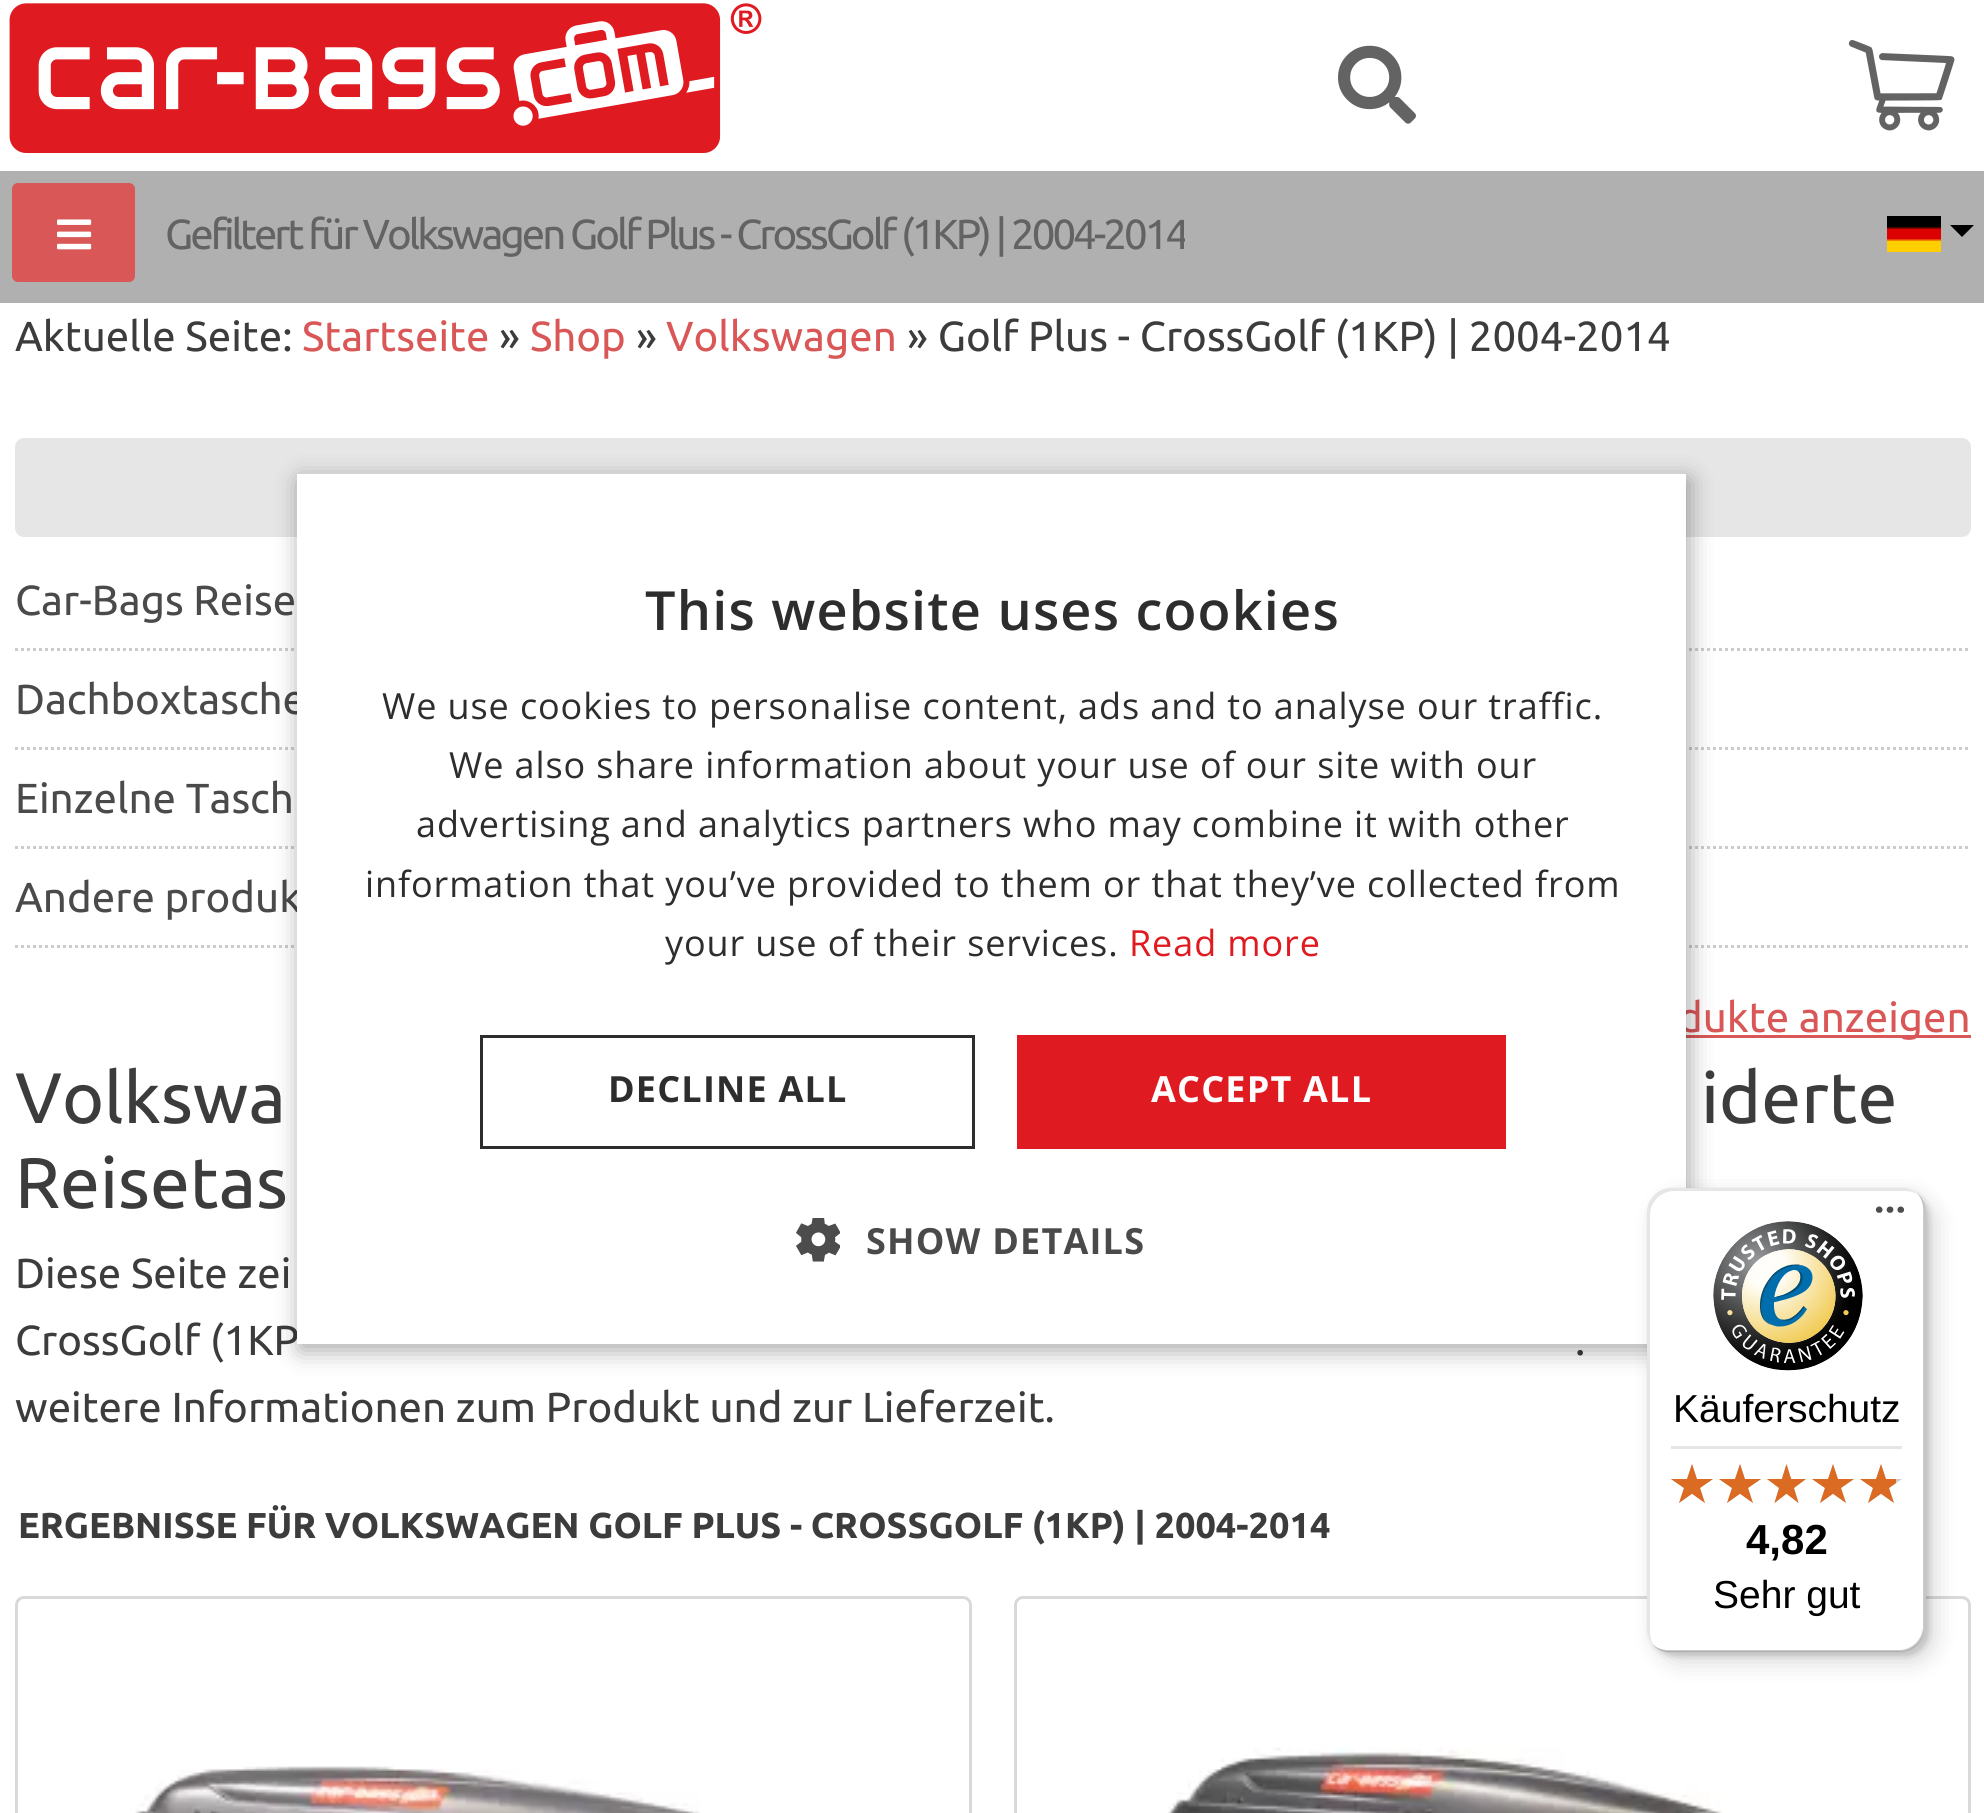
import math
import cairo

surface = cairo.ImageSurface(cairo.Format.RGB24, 1984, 1813)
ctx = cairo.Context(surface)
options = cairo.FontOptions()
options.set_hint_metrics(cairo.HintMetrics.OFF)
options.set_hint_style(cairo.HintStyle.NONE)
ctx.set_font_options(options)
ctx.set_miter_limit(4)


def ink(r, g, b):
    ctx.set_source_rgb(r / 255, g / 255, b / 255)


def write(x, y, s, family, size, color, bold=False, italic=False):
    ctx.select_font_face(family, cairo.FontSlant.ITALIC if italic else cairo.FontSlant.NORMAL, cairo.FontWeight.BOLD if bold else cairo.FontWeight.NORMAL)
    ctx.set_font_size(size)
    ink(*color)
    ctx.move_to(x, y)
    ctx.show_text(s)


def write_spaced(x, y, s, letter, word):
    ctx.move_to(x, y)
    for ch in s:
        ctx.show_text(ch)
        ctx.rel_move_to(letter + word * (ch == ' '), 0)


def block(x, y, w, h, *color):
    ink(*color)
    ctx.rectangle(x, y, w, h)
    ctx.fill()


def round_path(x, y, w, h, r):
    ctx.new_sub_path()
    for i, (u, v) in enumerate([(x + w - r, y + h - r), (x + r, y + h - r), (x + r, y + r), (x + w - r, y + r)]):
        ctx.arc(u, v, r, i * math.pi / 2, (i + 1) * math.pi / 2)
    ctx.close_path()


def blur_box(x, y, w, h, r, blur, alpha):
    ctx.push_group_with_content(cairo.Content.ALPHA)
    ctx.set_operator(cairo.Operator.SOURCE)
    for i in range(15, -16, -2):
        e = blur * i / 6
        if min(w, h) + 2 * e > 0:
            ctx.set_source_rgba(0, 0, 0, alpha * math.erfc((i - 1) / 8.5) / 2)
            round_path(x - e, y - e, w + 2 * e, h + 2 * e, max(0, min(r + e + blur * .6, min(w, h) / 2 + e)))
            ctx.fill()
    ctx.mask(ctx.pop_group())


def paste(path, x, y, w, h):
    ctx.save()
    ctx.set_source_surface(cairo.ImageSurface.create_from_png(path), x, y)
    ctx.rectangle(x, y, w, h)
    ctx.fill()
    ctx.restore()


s1 = dict(family="Ubuntu", size=42, color=(60, 60, 60))
s2 = dict(family="Ubuntu", size=42, color=(217, 87, 87))
s3 = dict(family="Ubuntu", size=42, color=(74, 74, 74))
s4 = dict(family="Ubuntu", size=71.5, color=(60, 60, 60))
s5 = dict(family="Ubuntu", size=36, color=(60, 60, 60), bold=True)
s6 = dict(family="Liberation Sans", size=39, color=(0, 0, 0))
s7 = dict(family="Liberation Sans", size=42, color=(0, 0, 0), bold=True)

ink(255, 255, 255)
ctx.paint()
paste("pic1.png", 9, 3, 753, 150)
paste("pic2.png", 1338, 45, 78, 79)
paste("pic3.png", 1848, 40, 107, 91)
block(0, 171, 1984, 132, 176, 176, 176)
ink(217, 87, 87)
round_path(12, 183, 123, 99, 6)
ctx.fill()
paste("pic4.png", 57, 219, 35, 31)
ctx.save()
ctx.rectangle(165, 183, 1020, 102)
ctx.clip()
ctx.select_font_face("Ubuntu")
ctx.set_font_size(42)
ink(99, 99, 99)
write_spaced(165, 249, "Gefiltert für Volkswagen Golf Plus - CrossGolf (1KP) | 2004-2014", -3, 0)
ctx.restore()
paste("pic5.png", 1887, 216, 54, 36)
ink(0, 0, 0)
ctx.new_path()
ctx.move_to(1950, 225)
ctx.line_to(1974, 225)
ctx.line_to(1962, 237)
ctx.close_path()
ctx.fill()
write(15, 351, "Aktuelle Seite:", **s1)
write(302, 351, "Startseite", **s2)
write(499, 351, "»", **s1)
write(530, 351, "Shop", **s2)
write(636, 351, "»", **s1)
write(666, 351, "Volkswagen", **s2)
write(907, 351, "» Golf Plus - CrossGolf (1KP) | 2004-2014", **s1)
ink(230, 230, 230)
round_path(15, 438, 1956, 99, 9)
ctx.fill()
write(15, 615, "Car-Bags Reise", **s3)
ctx.new_path()
ctx.move_to(15, 649.5)
ctx.line_to(1971, 649.5)
ink(204, 204, 204)
ctx.set_line_width(3)
ctx.set_dash([3, 3])
ctx.stroke()
ctx.new_path()
ctx.move_to(15, 748.5)
ctx.line_to(1971, 748.5)
ctx.stroke()
write(15, 714, "Dachboxtasche", **s3)
ctx.new_path()
ctx.move_to(15, 847.5)
ctx.line_to(1971, 847.5)
ink(204, 204, 204)
ctx.stroke()
write(15, 813, "Einzelne Tasch", **s3)
ctx.new_path()
ctx.move_to(15, 946.5)
ctx.line_to(1971, 946.5)
ink(204, 204, 204)
ctx.stroke()
write(15, 912, "Andere produk", **s3)
block(1686, 1035, 285, 3, 217, 87, 87)
write(1678, 1032, "dukte anzeigen", **s2)
write(15, 1123, "Volkswa", **s4)
write(1701, 1123, "iderte", **s4)
write(15, 1208, "Reisetas", **s4)
write(15, 1288, "Diese Seite zei", **s1)
write(15, 1355, "CrossGolf (1KP", **s1)
write(1575, 1355, ".", **s1)
write(15, 1422, "weitere Informationen zum Produkt und zur Lieferzeit.", **s1)
write(18, 1538, "ERGEBNISSE FÜR VOLKSWAGEN GOLF PLUS - CROSSGOLF (1KP) | 2004-2014", **s5)
round_path(16.5, 1597.5, 954, 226, 7.5)
ink(217, 217, 217)
ctx.set_dash([])
ctx.stroke()
paste("pic6.png", 135, 1766, 565, 47)
round_path(1015.5, 1597.5, 954, 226, 7.5)
ctx.stroke()
paste("pic7.png", 1168, 1747, 555, 66)
ink(0, 0, 0)
blur_box(300, 480, 1389, 870, 0, 12, 0.35)
block(297, 474, 1389, 870, 255, 255, 255)
ctx.select_font_face("Open Sans SemiBold")
ctx.set_font_size(54)
ink(45, 45, 45)
write_spaced(645, 630, "This website uses cookies", 1.2, 0)
ctx.select_font_face("Open Sans")
ctx.set_font_size(36)
write_spaced(382, 719, "We use cookies to personalise content, ads and to analyse our traffic.", 0.9, 0)
write_spaced(449, 778, "We also share information about your use of our site with our", 0.9, 0)
write_spaced(416, 837, "advertising and analytics partners who may combine it with other", 0.9, 0)
write_spaced(365, 897, "information that you’ve provided to them or that they’ve collected from", 0.9, 0)
write_spaced(665, 956, "your use of their services.", 0.9, 0)
ink(223, 26, 33)
write_spaced(1129, 956, "Read more", 0.9, 0)
ctx.rectangle(481.5, 1036.5, 492, 111)
ink(45, 45, 45)
ctx.stroke()
ctx.select_font_face("Open Sans", cairo.FontSlant.NORMAL, cairo.FontWeight.BOLD)
write_spaced(608, 1102, "DECLINE ALL", 1.2, 0)
block(1017, 1035, 489, 114, 223, 26, 33)
ink(255, 255, 255)
write_spaced(1151, 1102, "ACCEPT ALL", 1.2, 0)
paste("pic8.png", 796, 1218, 44, 44)
ink(74, 74, 74)
write_spaced(866, 1254, "SHOW DETAILS", 1.2, 0)
ink(0, 0, 0)
blur_box(1656, 1197, 279, 465, 24, 12, 0.15)
blur_box(1650, 1191, 279, 465, 24, 3, 0.15)
ink(255, 255, 255)
round_path(1647, 1188, 279, 465, 24)
ctx.fill()
ctx.set_source_rgba(0, 0, 0, 0.1)
ctx.new_path()
ctx.move_to(1674, 1191)
ctx.line_to(1905, 1191)
ctx.curve_to(1911, 1191, 1917, 1193, 1921, 1197)
ctx.curve_to(1916, 1192, 1910, 1188, 1902, 1188)
ctx.line_to(1671, 1188)
ctx.curve_to(1658, 1188, 1647, 1199, 1647, 1212)
ctx.line_to(1647, 1629)
ctx.curve_to(1647, 1637, 1651, 1643, 1656, 1648)
ctx.curve_to(1652, 1644, 1650, 1638, 1650, 1632)
ctx.line_to(1650, 1215)
ctx.curve_to(1650, 1202, 1661, 1191, 1674, 1191)
ctx.close_path()
ctx.fill()
ctx.set_source_rgba(0, 0, 0, 0.2)
ctx.new_path()
ctx.move_to(1652, 1644)
ctx.curve_to(1657, 1649, 1663, 1653, 1671, 1653)
ctx.line_to(1902, 1653)
ctx.curve_to(1915, 1653, 1926, 1642, 1926, 1629)
ctx.line_to(1926, 1212)
ctx.curve_to(1926, 1204, 1922, 1198, 1917, 1193)
ctx.curve_to(1921, 1197, 1923, 1203, 1923, 1209)
ctx.line_to(1923, 1626)
ctx.curve_to(1923, 1639, 1912, 1650, 1899, 1650)
ctx.line_to(1668, 1650)
ctx.curve_to(1662, 1650, 1656, 1648, 1652, 1644)
ctx.close_path()
ctx.fill()
ctx.set_source_rgba(0.196, 0.196, 0.196, 0.2)
ctx.new_path()
ctx.move_to(1652, 1644)
ctx.curve_to(1657, 1650, 1663, 1653, 1671, 1653)
ctx.line_to(1902, 1653)
ctx.curve_to(1915, 1653, 1926, 1642, 1926, 1629)
ctx.line_to(1926, 1212)
ctx.curve_to(1926, 1204, 1923, 1198, 1917, 1193)
ctx.curve_to(1921, 1198, 1924, 1204, 1924, 1210)
ctx.line_to(1924, 1627)
ctx.curve_to(1924, 1640, 1913, 1651, 1900, 1651)
ctx.line_to(1669, 1651)
ctx.curve_to(1663, 1651, 1657, 1648, 1652, 1644)
ctx.close_path()
ctx.fill()
ctx.set_source_rgba(1, 1, 1, 0.3)
ctx.new_path()
ctx.move_to(1655, 1647)
ctx.curve_to(1659, 1651, 1665, 1653, 1671, 1653)
ctx.line_to(1902, 1653)
ctx.curve_to(1915, 1653, 1926, 1642, 1926, 1629)
ctx.line_to(1926, 1212)
ctx.curve_to(1926, 1205, 1923, 1199, 1919, 1195)
ctx.curve_to(1922, 1199, 1924, 1204, 1924, 1210)
ctx.line_to(1924, 1628)
ctx.curve_to(1924, 1641, 1914, 1652, 1900, 1652)
ctx.line_to(1670, 1652)
ctx.curve_to(1664, 1652, 1659, 1650, 1655, 1647)
ctx.close_path()
ctx.fill()
paste("pic9.png", 1875, 1206, 30, 7)
paste("pic10.png", 1713, 1221, 150, 150)
write(1673, 1422, "Käuferschutz", **s6)
block(1671, 1446, 231, 3, 229, 229, 229)
paste("pic11.png", 1671, 1464, 42, 39)
paste("pic11.png", 1719, 1464, 42, 39)
paste("pic12.png", 1767, 1464, 39, 39)
paste("pic11.png", 1812, 1464, 42, 39)
paste("pic11.png", 1860, 1464, 42, 39)
paste("pic13.png", 1671, 1464, 42, 39)
paste("pic13.png", 1719, 1464, 42, 39)
paste("pic14.png", 1767, 1464, 39, 39)
paste("pic13.png", 1812, 1464, 42, 39)
paste("pic15.png", 1860, 1464, 36, 39)
write(1746, 1554, "4,82", **s7)
write(1713, 1608, "Sehr gut", **s6)
surface.write_to_png("screenshot.png")
